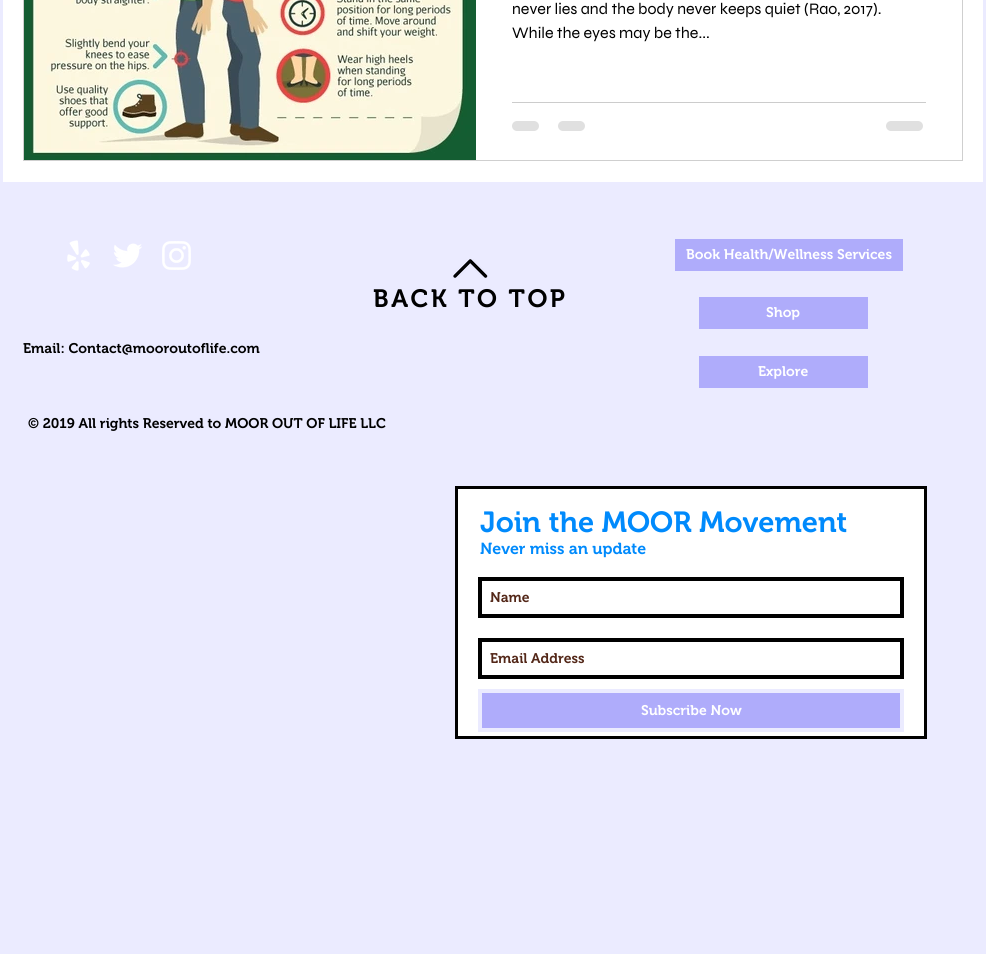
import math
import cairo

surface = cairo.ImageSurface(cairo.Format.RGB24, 986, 954)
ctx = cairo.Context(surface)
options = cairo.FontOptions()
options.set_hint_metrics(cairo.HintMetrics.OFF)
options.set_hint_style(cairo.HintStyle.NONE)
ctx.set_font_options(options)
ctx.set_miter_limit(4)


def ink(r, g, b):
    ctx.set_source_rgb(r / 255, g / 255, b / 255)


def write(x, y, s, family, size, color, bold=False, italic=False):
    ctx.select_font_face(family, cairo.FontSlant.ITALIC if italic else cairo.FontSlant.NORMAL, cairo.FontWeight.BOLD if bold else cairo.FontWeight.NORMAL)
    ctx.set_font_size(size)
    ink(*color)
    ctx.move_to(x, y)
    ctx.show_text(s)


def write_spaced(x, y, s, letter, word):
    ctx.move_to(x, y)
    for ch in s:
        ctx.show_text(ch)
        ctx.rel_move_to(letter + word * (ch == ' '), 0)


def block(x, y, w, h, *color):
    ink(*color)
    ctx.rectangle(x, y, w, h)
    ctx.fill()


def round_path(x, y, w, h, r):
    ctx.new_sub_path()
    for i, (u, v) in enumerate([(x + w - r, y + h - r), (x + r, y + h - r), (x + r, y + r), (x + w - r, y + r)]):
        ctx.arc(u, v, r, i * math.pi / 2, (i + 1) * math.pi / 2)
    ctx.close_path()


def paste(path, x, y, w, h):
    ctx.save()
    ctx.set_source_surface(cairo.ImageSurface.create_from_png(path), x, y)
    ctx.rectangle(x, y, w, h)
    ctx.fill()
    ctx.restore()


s1 = dict(family="Syne", size=16, color=(0, 0, 0))
s2 = dict(family="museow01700 SemiBold", size=14, color=(255, 255, 255))
s3 = dict(family="museow01700 SemiBold", size=14, color=(0, 0, 0))
s4 = dict(family="museow01700 SemiBold", size=29, color=(0, 138, 252))
s5 = dict(family="museow01700 SemiBold", size=16, color=(0, 138, 252))
s6 = dict(family="museow01700 SemiBold", size=14, color=(83, 39, 24))

ink(235, 235, 255)
ctx.paint()
block(3, 0, 980, 182, 255, 255, 255)
ctx.rectangle(23.5, -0.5, 939, 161)
ink(207, 207, 207)
ctx.set_line_width(1)
ctx.stroke()
paste("pic1.png", 24, 0, 452, 160)
write(512, 14, "never lies and the body never keeps quiet (Rao, 2017).", **s1)
write(512, 38, "While the eyes may be the...", **s1)
block(512, 102, 414, 1, 204, 204, 204)
ink(224, 224, 224)
round_path(512, 121, 27, 10, 5)
ctx.fill()
round_path(558, 121, 27, 10, 5)
ctx.fill()
round_path(886, 121, 37, 10, 5)
ctx.fill()
paste("pic2.png", 67, 240, 23, 31)
paste("pic3.png", 113, 243, 29, 25)
paste("pic4.png", 162, 241, 29, 29)
block(675, 239, 228, 32, 175, 172, 251)
write(686, 259, "Book Health/Wellness Services", **s2)
paste("pic5.png", 453, 259, 35, 19)
ctx.set_font_size(25)
ink(0, 0, 0)
write_spaced(373, 307, "BACK TO TOP", 2.5, 0)
block(699, 297, 169, 32, 175, 172, 251)
write(766, 317, "Shop", **s2)
write(23, 353, "Email: Contact@mooroutoflife.com", **s3)
block(699, 356, 169, 32, 175, 172, 251)
write(758, 376, "Explore", **s2)
write(28, 428, "© 2019 All rights Reserved to MOOR OUT OF LIFE LLC", **s3)
ink(255, 255, 255)
ctx.rectangle(456.5, 487.5, 469, 250)
ctx.fill_preserve()
ink(0, 0, 0)
ctx.set_line_width(3)
ctx.stroke()
write(480, 532, "Join the MOOR Movement", **s4)
write(480, 554, "Never miss an update", **s5)
ctx.rectangle(480, 579, 422, 37)
ink(0, 0, 0)
ctx.set_line_width(4)
ctx.stroke()
write(490, 602, "Name", **s6)
ctx.rectangle(480, 640, 422, 37)
ink(0, 0, 0)
ctx.stroke()
write(490, 663, "Email Address", **s6)
ink(175, 172, 251)
ctx.rectangle(480, 691, 422, 39)
ctx.fill_preserve()
ink(235, 235, 255)
ctx.stroke()
write(641, 715, "Subscribe Now", **s2)
surface.write_to_png("screenshot.png")
